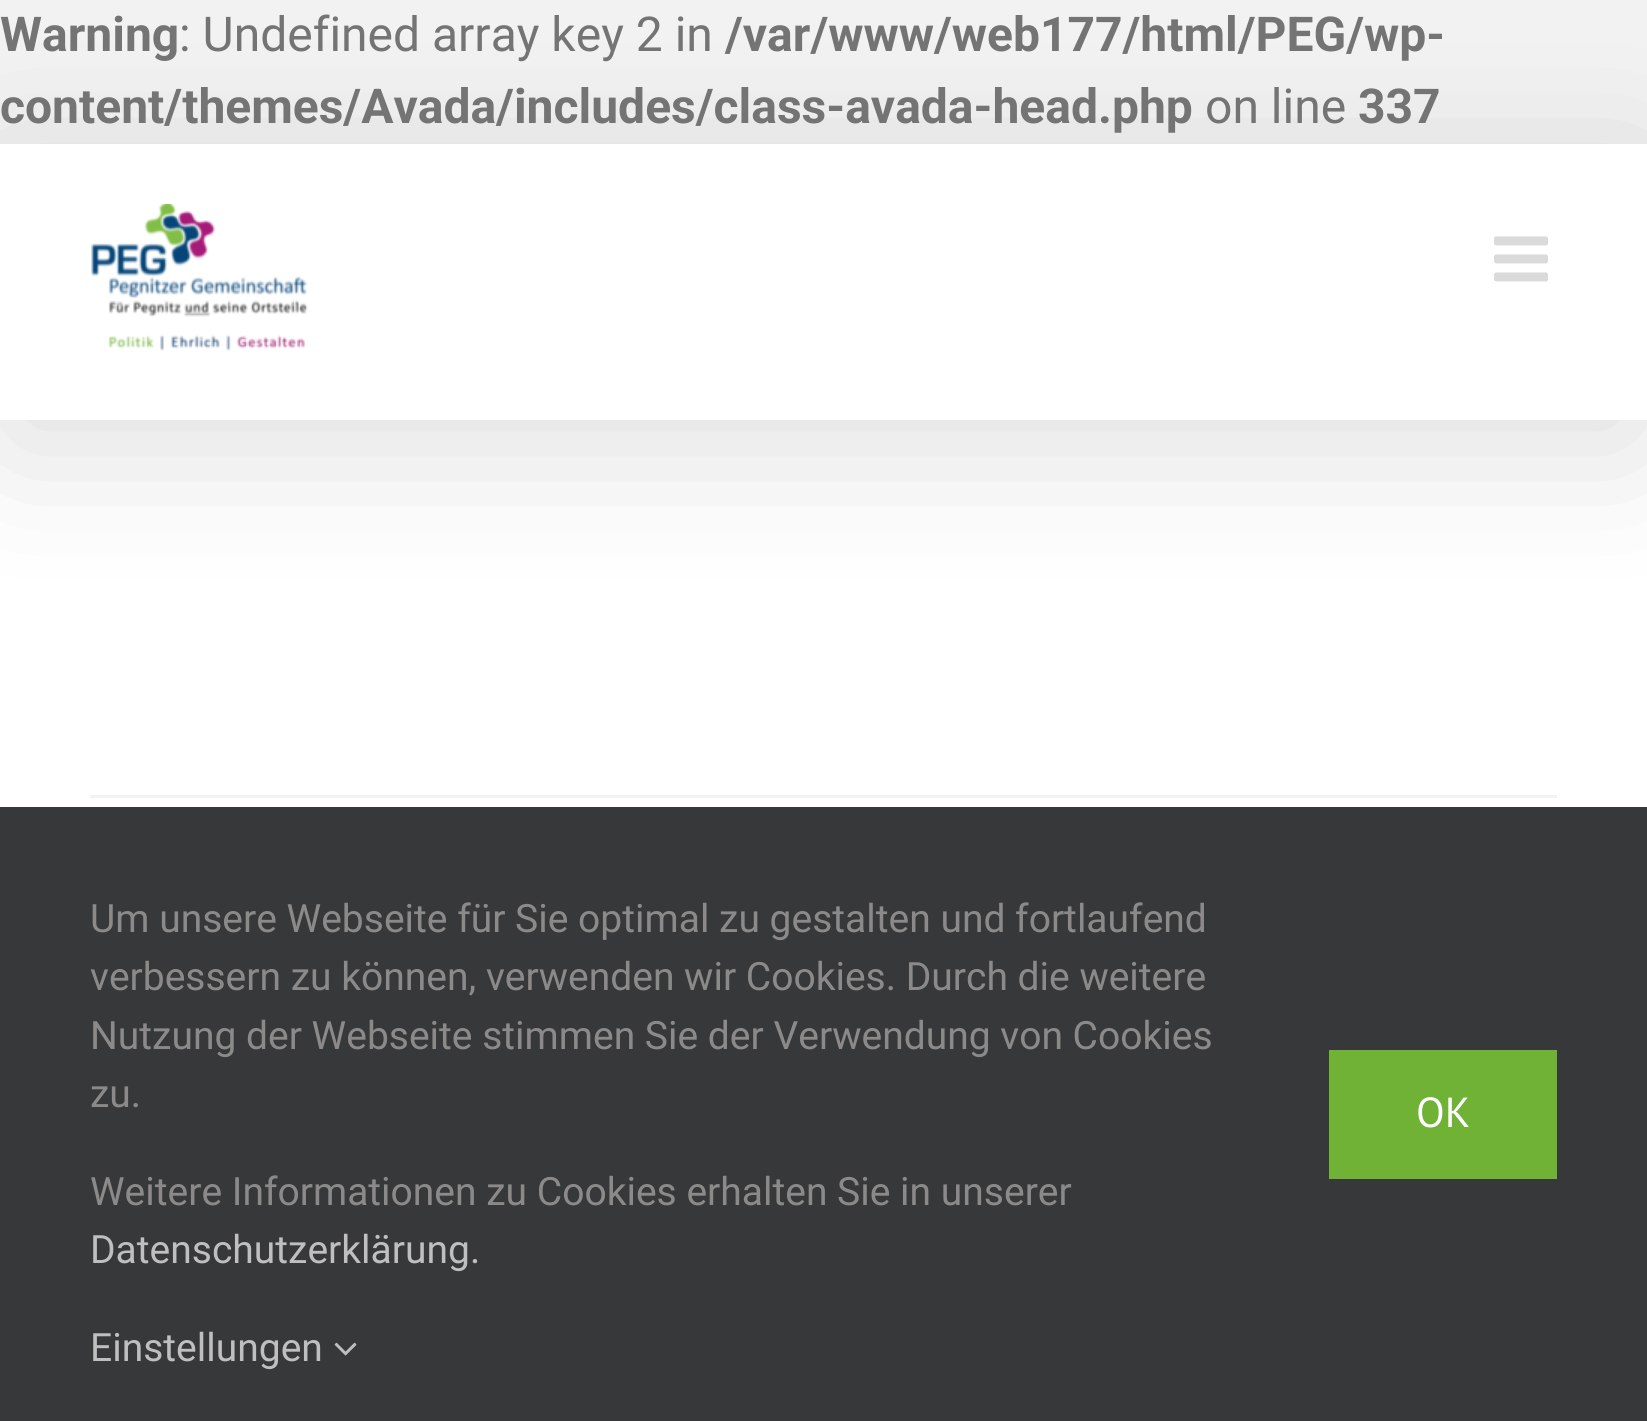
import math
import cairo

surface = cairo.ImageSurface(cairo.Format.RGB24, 1647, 1421)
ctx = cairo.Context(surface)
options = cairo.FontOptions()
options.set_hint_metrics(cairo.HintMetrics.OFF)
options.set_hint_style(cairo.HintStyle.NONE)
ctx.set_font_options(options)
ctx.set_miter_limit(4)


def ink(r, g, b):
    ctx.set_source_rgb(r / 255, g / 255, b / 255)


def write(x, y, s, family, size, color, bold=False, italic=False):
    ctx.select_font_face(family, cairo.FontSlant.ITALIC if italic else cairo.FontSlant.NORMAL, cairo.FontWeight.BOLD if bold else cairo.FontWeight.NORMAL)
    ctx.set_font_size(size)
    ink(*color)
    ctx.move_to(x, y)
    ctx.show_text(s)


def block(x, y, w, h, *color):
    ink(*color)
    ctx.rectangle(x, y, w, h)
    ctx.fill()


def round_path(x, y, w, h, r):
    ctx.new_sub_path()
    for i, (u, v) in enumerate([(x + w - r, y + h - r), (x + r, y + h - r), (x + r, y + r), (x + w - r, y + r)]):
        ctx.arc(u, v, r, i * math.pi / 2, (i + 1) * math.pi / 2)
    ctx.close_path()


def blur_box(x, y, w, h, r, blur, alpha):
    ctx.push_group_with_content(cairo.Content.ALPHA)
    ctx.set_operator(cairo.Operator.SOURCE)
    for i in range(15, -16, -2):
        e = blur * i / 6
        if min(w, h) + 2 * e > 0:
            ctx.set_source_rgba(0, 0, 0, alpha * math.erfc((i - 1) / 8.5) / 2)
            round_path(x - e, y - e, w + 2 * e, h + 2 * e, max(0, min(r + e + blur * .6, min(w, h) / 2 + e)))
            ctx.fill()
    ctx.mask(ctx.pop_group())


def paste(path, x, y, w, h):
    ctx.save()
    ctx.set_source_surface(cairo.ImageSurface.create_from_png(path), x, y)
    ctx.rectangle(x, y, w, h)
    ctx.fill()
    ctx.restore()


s1 = dict(family="Roboto", size=48, color=(116, 116, 116), bold=True)
s2 = dict(family="Roboto", size=48, color=(116, 116, 116))
s3 = dict(family="Roboto", size=39, color=(140, 137, 137))
s4 = dict(family="Roboto", size=39, color=(191, 191, 191))
s5 = dict(family="PT Sans", size=42, color=(255, 255, 255))

ink(242, 242, 242)
ctx.paint()
block(0, 144, 1647, 663, 255, 255, 255)
ctx.save()
ctx.set_fill_rule(cairo.FillRule.EVEN_ODD)
ctx.new_path()
ctx.move_to(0, 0)
ctx.line_to(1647, 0)
ctx.line_to(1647, 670)
ctx.line_to(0, 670)
ctx.close_path()
ctx.move_to(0, 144)
ctx.line_to(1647, 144)
ctx.line_to(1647, 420)
ctx.line_to(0, 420)
ctx.close_path()
ctx.clip()
ink(0, 0, 0)
blur_box(6, 180, 1635, 264, 0, 75, 0.14)
ctx.restore()
paste("pic1.png", 91, 204, 217, 147)
paste("pic2.png", 1494, 236, 54, 46)
block(90, 795, 1467, 3, 242, 242, 242)
write(0, 51, "Warning", **s1)
write(179, 51, ": Undefined array key 2 in", **s2)
write(725, 51, "/var/www/web177/html/PEG/wp-", **s1)
write(0, 123, "content/themes/Avada/includes/class-avada-head.php", **s1)
write(1205, 123, "on line", **s2)
write(1358, 123, "337", **s1)
block(0, 807, 1647, 614, 54, 56, 57)
write(90, 932, "Um unsere Webseite für Sie optimal zu gestalten und fortlaufend", **s3)
write(90, 990, "verbessern zu können, verwenden wir Cookies. Durch die weitere", **s3)
write(90, 1049, "Nutzung der Webseite stimmen Sie der Verwendung von Cookies", **s3)
write(90, 1107, "zu.", **s3)
write(90, 1205, "Weitere Informationen zu Cookies erhalten Sie in unserer", **s3)
write(90, 1263, "Datenschutzerklärung.", **s4)
write(90, 1361, "Einstellungen", **s4)
paste("pic3.png", 334, 1342, 23, 14)
block(1329, 1050, 228, 129, 111, 178, 54)
write(1416, 1127, "OK", **s5)
surface.write_to_png("screenshot.png")
